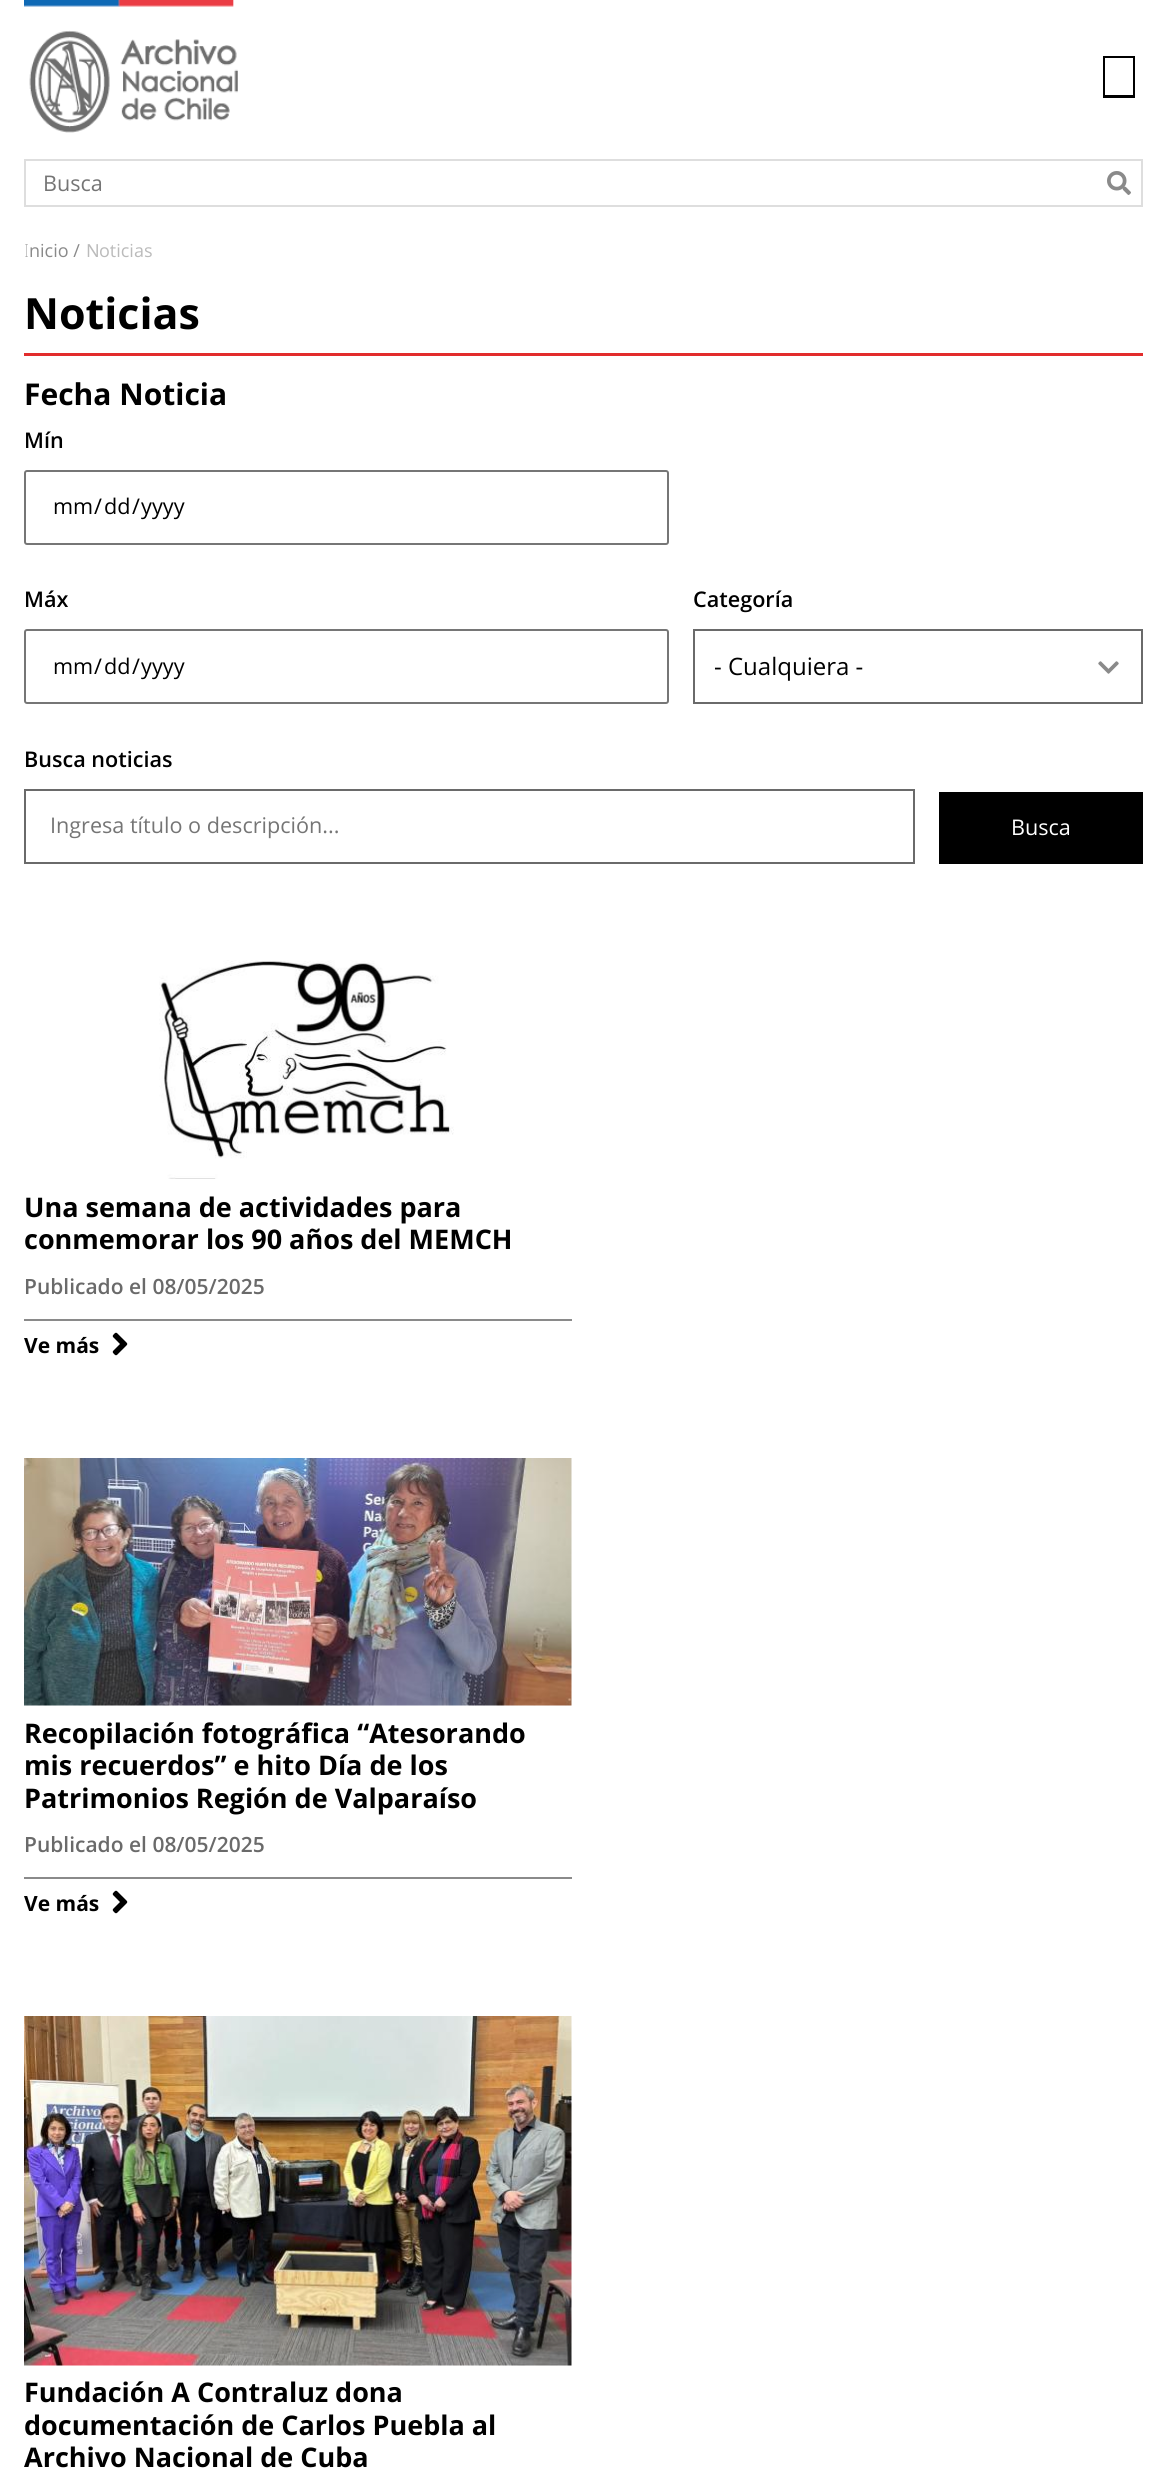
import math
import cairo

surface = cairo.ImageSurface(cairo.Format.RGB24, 1166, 2492)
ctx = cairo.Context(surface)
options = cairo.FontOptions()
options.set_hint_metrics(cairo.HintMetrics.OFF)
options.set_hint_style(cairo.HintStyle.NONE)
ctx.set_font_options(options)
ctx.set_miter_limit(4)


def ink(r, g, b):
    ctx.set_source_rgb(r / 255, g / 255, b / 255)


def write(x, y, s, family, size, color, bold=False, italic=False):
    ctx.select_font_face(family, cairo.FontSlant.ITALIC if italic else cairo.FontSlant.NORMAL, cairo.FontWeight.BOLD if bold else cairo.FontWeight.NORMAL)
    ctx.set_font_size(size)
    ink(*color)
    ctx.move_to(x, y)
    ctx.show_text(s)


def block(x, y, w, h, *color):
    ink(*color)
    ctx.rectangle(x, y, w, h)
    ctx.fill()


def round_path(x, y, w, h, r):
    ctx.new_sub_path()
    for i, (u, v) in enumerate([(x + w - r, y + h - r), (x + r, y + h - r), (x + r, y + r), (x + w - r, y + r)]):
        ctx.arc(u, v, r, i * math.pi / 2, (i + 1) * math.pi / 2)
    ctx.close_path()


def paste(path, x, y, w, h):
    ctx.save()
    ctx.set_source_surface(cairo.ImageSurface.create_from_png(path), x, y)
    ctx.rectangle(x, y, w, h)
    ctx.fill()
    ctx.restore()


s1 = dict(family="Open Sans", size=21.6, color=(117, 117, 117))
s2 = dict(family="Noto Sans Thin", size=18, color=(138, 138, 138))
s3 = dict(family="Open Sans", size=18, color=(138, 138, 138))
s4 = dict(family="Noto Sans", size=18, color=(187, 187, 187))
s5 = dict(family="Open Sans", size=18, color=(187, 187, 187))
s6 = dict(family="Open Sans", size=43, color=(0, 0, 0), bold=True)
s7 = dict(family="Open Sans", size=30, color=(0, 0, 0), bold=True)
s8 = dict(family="Open Sans SemiBold", size=21.6, color=(0, 0, 0))
s9 = dict(family="Open Sans", size=21.6, color=(0, 0, 0))
s10 = dict(family="Open Sans", size=24, color=(0, 0, 0))
s11 = dict(family="Open Sans", size=21.6, color=(255, 255, 255))
s12 = dict(family="Open Sans", size=27, color=(0, 0, 0), bold=True)
s13 = dict(family="Open Sans SemiBold", size=21, color=(106, 106, 106))
s14 = dict(family="Open Sans", size=21, color=(0, 0, 0), bold=True)

ink(255, 255, 255)
ctx.paint()
paste("pic1.png", 24, 0, 214, 133)
ink(0, 0, 0)
ctx.new_path()
ctx.move_to(1103, 56)
ctx.line_to(1135, 56)
ctx.line_to(1135, 98)
ctx.line_to(1103, 98)
ctx.close_path()
ctx.move_to(1105, 58)
ctx.line_to(1105, 95)
ctx.line_to(1133, 95)
ctx.line_to(1133, 58)
ctx.close_path()
ctx.fill()
ctx.rectangle(25, 160, 1117, 46)
ink(222, 222, 222)
ctx.stroke()
write(43, 191, "Busca", **s1)
paste("pic2.png", 1107, 171, 24, 24)
write(24, 257, "I", **s2)
write(29, 257, "nicio /", **s3)
write(86, 257, "N", **s4)
write(99, 257, "oticias", **s5)
block(24, 353, 1119, 3, 226, 44, 44)
write(24, 329, "Noticias", **s6)
write(24, 405, "Fecha Noticia", **s7)
write(24, 448, "Mín", **s8)
round_path(25, 471, 643, 73, 2)
ink(118, 118, 118)
ctx.stroke()
write(53, 514, "mm", **s9)
write(94, 514, "/", **s9)
write(104, 514, "dd", **s9)
write(132, 514, "/", **s9)
write(141, 514, "yyyy", **s9)
write(24, 607, "Máx", **s8)
round_path(25, 630, 643, 73, 2)
ink(118, 118, 118)
ctx.stroke()
write(53, 674, "mm", **s9)
write(94, 674, "/", **s9)
write(104, 674, "dd", **s9)
write(132, 674, "/", **s9)
write(141, 674, "yyyy", **s9)
write(693, 607, "Categoría", **s8)
ctx.rectangle(694, 630, 448, 73)
ink(106, 106, 106)
ctx.stroke()
write(714, 675, "- Cualquiera -", **s10)
paste("pic3.png", 1098, 661, 21, 13)
write(24, 767, "Busca noticias", **s8)
ctx.rectangle(25, 790, 889, 73)
ink(106, 106, 106)
ctx.stroke()
write(50, 833, "Ingresa título o descripción...", **s1)
block(939, 792, 204, 72, 0, 0, 0)
write(1011, 835, "Busca", **s11)
paste("pic4.png", 159, 960, 295, 219)
write(24, 1217, "Una semana de actividades para", **s12)
write(24, 1249, "conmemorar los 90 años del MEMCH", **s12)
write(24, 1294, "Publicado el 08/05/2025", **s13)
block(24, 1319, 548, 2, 138, 138, 138)
write(24, 1353, "Ve más", **s14)
paste("pic5.png", 112, 1332, 16, 24)
paste("pic6.png", 24, 1458, 548, 248)
write(24, 1743, "Recopilación fotográfica “Atesorando", **s12)
write(24, 1775, "mis recuerdos” e hito Día de los", **s12)
write(24, 1808, "Patrimonios Región de Valparaíso", **s12)
write(24, 1852, "Publicado el 08/05/2025", **s13)
block(24, 1877, 548, 2, 138, 138, 138)
write(24, 1911, "Ve más", **s14)
paste("pic5.png", 112, 1890, 16, 24)
paste("pic7.png", 24, 2016, 548, 350)
write(24, 2402, "Fundación A Contraluz dona", **s12)
write(24, 2435, "documentación de Carlos Puebla al", **s12)
write(24, 2467, "Archivo Nacional de Cuba", **s12)
surface.write_to_png("screenshot.png")
